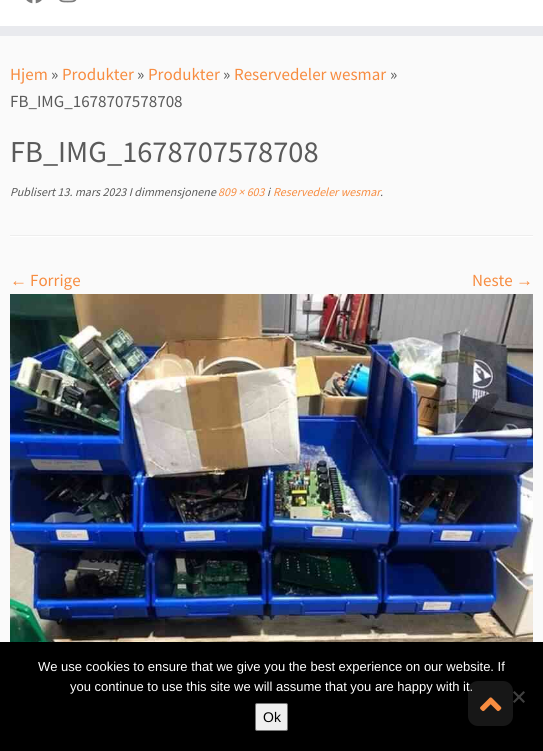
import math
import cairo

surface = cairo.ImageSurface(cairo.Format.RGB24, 543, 751)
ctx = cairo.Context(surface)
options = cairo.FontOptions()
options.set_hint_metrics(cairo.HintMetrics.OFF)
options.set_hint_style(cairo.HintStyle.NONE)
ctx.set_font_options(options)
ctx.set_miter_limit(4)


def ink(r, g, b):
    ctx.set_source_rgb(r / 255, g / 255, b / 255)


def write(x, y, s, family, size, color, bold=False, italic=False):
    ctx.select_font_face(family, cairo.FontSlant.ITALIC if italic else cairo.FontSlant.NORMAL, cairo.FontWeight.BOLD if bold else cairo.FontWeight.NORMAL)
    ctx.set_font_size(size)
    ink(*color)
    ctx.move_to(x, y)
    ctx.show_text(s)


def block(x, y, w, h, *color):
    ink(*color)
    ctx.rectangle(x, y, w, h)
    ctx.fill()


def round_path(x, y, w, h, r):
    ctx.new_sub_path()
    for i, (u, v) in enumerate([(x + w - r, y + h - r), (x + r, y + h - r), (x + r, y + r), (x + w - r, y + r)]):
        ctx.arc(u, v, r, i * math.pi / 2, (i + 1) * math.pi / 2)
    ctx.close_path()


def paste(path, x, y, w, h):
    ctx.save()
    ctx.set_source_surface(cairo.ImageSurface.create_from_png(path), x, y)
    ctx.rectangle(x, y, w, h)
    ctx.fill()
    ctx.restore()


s1 = dict(family="Source Sans Pro", size=17, color=(247, 140, 64))
s2 = dict(family="Source Sans Pro", size=17, color=(90, 90, 90))
s3 = dict(family="Source Sans Pro", size=30.4, color=(90, 90, 90))
s4 = dict(family="Source Sans Pro", size=12, color=(90, 90, 90), italic=True)
s5 = dict(family="Source Sans Pro", size=12, color=(247, 140, 64), italic=True)
s6 = dict(family="Liberation Serif", size=17, color=(247, 140, 64))
s7 = dict(family="Liberation Sans", size=13, color=(255, 255, 255))
s8 = dict(family="Liberation Sans", size=14, color=(0, 0, 0))

ink(250, 250, 250)
ctx.paint()
block(0, 0, 543, 26, 255, 255, 255)
block(0, 26, 543, 10, 233, 234, 238)
paste("pic1.png", 26, 0, 16, 4)
paste("pic2.png", 59, 0, 18, 3)
write(10, 80, "Hjem", **s1)
write(51, 80, "»", **s2)
write(62, 80, "Produkter", **s1)
write(137, 80, "»", **s2)
write(148, 80, "Produkter", **s1)
write(223, 80, "»", **s2)
write(234, 80, "Reservedeler wesmar", **s1)
write(390, 80, "»", **s2)
write(10, 107, "FB_IMG_1678707578708", **s2)
write(10, 162, "FB_IMG_1678707578708", **s3)
write(10, 196, "Publisert 13. mars 2023 I dimmensjonene", **s4)
write(218, 196, "809 × 603", **s5)
write(267, 196, "i", **s4)
write(273, 196, "Reservedeler wesmar", **s5)
write(380, 196, ".", **s4)
block(10, 235, 523, 1, 238, 238, 238)
block(10, 236, 523, 1, 255, 255, 255)
write(10, 286, "←", **s6)
write(30, 286, "Forrige", **s1)
write(472, 286, "Neste", **s1)
write(516, 286, "→", **s6)
paste("pic3.png", 10, 294, 523, 348)
block(0, 642, 543, 109, 0, 0, 0)
write(38, 671, "We use cookies to ensure that we give you the best experience on our website. If", **s7)
write(70, 691, "you continue to use this site we will assume that you are happy with it.", **s7)
ink(64, 64, 64)
ctx.new_path()
ctx.move_to(523.5, 691)
ctx.line_to(525, 692.5)
ctx.line_to(514.5, 703)
ctx.line_to(513, 701.5)
ctx.close_path()
ctx.fill()
ctx.new_path()
ctx.move_to(513, 692.5)
ctx.line_to(514.5, 691)
ctx.line_to(525, 701.5)
ctx.line_to(523.5, 703)
ctx.close_path()
ctx.fill()
ink(239, 239, 239)
round_path(255.5, 703.5, 32, 27, 1.5)
ctx.fill_preserve()
ink(118, 118, 118)
ctx.set_line_width(1)
ctx.stroke()
write(263, 722, "Ok", **s8)
ctx.set_source_rgba(0.467, 0.467, 0.467, 0.2)
round_path(468, 681, 45, 45, 10)
ctx.fill()
paste("pic4.png", 480, 697, 22, 15)
surface.write_to_png("screenshot.png")
